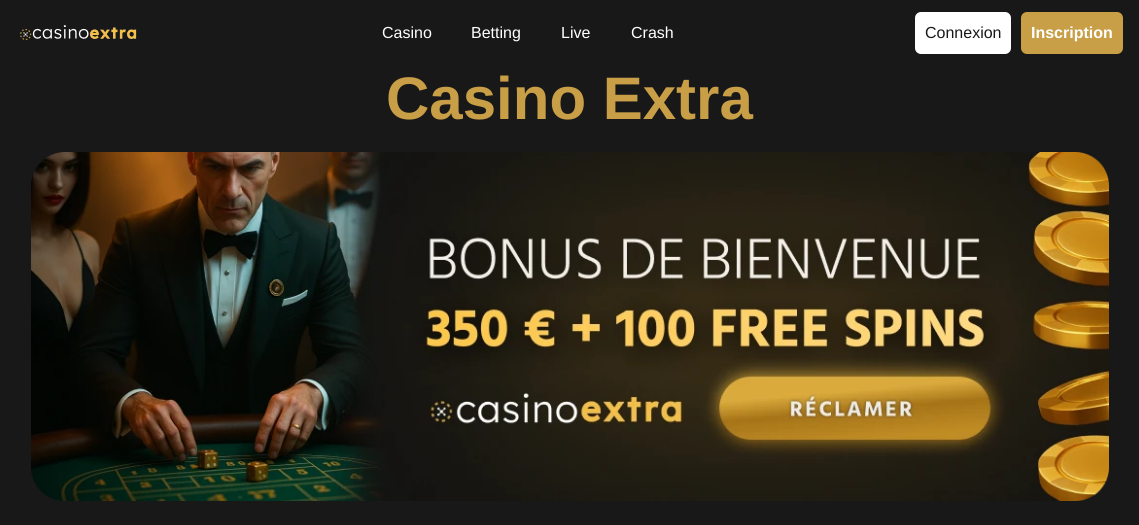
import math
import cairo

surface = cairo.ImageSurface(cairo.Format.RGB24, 1139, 525)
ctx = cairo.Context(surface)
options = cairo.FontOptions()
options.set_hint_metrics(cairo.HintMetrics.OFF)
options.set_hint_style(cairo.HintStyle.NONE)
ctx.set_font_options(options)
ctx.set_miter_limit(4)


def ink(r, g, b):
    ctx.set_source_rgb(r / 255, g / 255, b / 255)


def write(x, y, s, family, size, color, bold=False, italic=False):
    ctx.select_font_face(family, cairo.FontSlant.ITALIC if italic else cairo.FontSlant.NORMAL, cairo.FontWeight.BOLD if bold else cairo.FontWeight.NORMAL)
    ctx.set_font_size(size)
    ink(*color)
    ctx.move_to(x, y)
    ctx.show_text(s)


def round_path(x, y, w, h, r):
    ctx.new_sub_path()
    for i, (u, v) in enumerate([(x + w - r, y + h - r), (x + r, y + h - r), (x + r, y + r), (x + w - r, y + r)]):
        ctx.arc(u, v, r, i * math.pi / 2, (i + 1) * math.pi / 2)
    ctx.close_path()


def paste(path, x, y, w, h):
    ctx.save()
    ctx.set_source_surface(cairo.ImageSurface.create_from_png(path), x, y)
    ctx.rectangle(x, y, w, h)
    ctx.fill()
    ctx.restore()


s1 = dict(family="Liberation Sans", size=16, color=(255, 255, 255))
s2 = dict(family="Liberation Sans", size=16, color=(24, 24, 24))
s3 = dict(family="Liberation Sans", size=16, color=(255, 255, 255), bold=True)
s4 = dict(family="Liberation Sans", size=60, color=(200, 158, 70), bold=True)

ink(24, 24, 24)
ctx.paint()
paste("pic1.png", 20, 25, 117, 15)
write(382, 38, "Casino", **s1)
write(471, 38, "Betting", **s1)
write(561, 38, "Live", **s1)
write(631, 38, "Crash", **s1)
round_path(915, 12, 96, 42, 6)
ctx.fill()
write(925, 38, "Connexion", **s2)
ink(200, 158, 70)
round_path(1021, 12, 102, 42, 6)
ctx.fill()
write(1031, 38, "Inscription", **s3)
write(386, 119, "Casino Extra", **s4)
paste("pic2.png", 31, 152, 1078, 349)
surface.write_to_png("screenshot.png")
